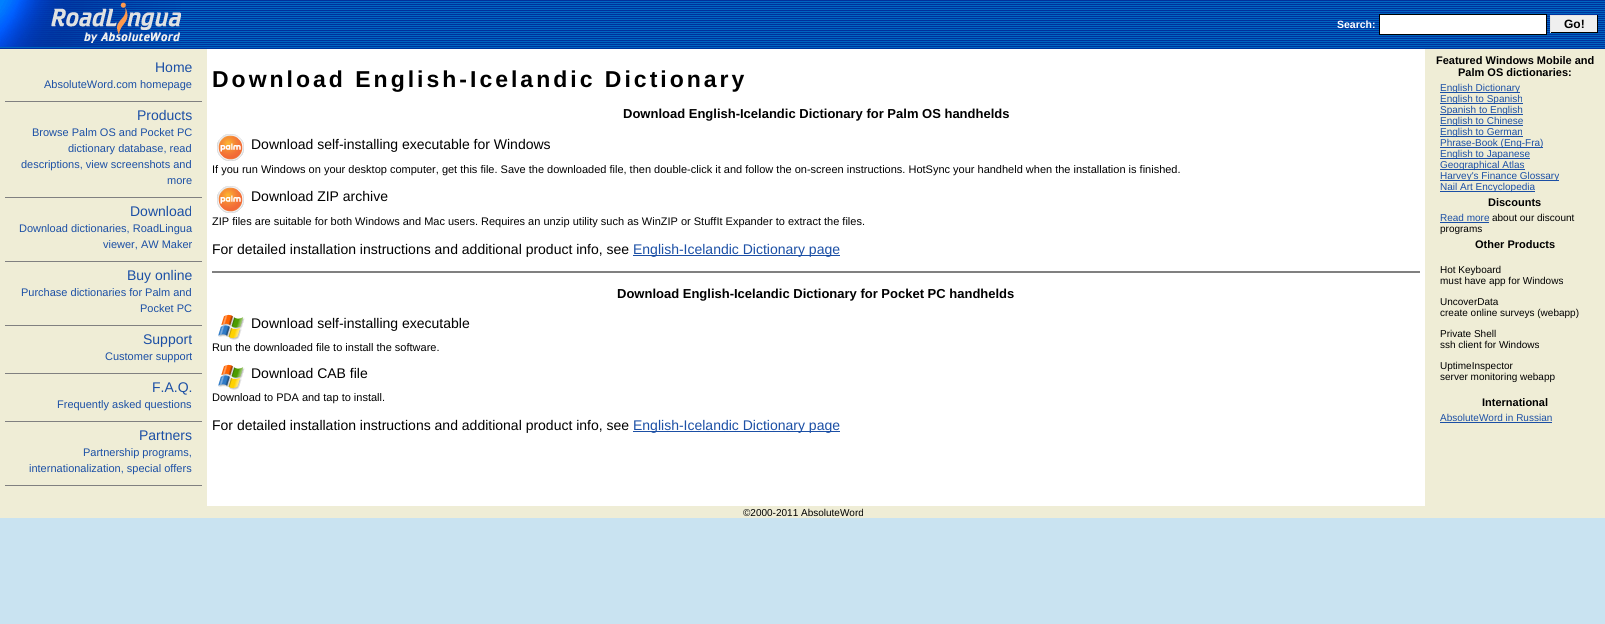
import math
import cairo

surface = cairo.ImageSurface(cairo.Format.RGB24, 1605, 624)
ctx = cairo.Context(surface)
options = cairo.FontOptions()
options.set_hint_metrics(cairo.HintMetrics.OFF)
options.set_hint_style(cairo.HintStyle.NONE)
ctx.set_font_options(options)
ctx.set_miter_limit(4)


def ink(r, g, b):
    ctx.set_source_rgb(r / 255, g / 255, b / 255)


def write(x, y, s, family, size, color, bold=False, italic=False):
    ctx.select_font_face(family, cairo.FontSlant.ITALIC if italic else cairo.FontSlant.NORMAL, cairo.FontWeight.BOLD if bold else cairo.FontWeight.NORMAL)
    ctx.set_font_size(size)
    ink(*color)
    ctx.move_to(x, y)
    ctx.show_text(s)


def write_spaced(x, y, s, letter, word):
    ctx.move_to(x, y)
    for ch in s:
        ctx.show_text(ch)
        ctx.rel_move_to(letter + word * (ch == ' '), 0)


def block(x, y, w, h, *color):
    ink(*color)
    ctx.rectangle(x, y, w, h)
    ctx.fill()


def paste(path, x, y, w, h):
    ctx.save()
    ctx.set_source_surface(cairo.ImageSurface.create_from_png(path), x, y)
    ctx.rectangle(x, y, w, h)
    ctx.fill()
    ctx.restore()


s1 = dict(family="Liberation Sans", size=10.5, color=(255, 255, 255), bold=True)
s2 = dict(family="Liberation Sans", size=12, color=(0, 0, 0), bold=True)
s3 = dict(family="Liberation Sans", size=14, color=(27, 79, 165))
s4 = dict(family="Liberation Sans", size=11, color=(27, 79, 165))
s5 = dict(family="Liberation Sans", size=13, color=(0, 0, 0), bold=True)
s6 = dict(family="Liberation Sans", size=14, color=(0, 0, 0))
s7 = dict(family="Liberation Sans", size=11, color=(0, 0, 0))
s8 = dict(family="Liberation Sans", size=11, color=(0, 0, 0), bold=True)
s9 = dict(family="Liberation Sans", size=10, color=(27, 79, 165))
s10 = dict(family="Liberation Sans", size=10, color=(0, 0, 0))

ink(201, 227, 241)
ctx.paint()
paste("pic1.png", 0, 0, 197, 49)
paste("pic2.png", 0, 0, 181, 47)
paste("pic3.png", 197, 0, 1408, 49)
write(1337, 28, "Search:", **s1)
ctx.rectangle(1379.5, 14.5, 167, 20)
ctx.fill_preserve()
ink(0, 0, 0)
ctx.set_line_width(1)
ctx.stroke()
block(1551, 16, 46, 16, 239, 239, 239)
block(1550, 15, 48, 1, 229, 229, 229)
block(1597, 15, 1, 18, 0, 0, 0)
block(1550, 32, 48, 1, 0, 0, 0)
block(1550, 15, 1, 18, 229, 229, 229)
write(1564, 28, "Go!", **s2)
block(0, 49, 1605, 469, 239, 237, 214)
block(5, 101, 197, 1, 128, 128, 128)
write(155, 72, "Home", **s3)
write(44, 88, "AbsoluteWord.com homepage", **s4)
block(5, 197, 197, 1, 128, 128, 128)
write(137, 120, "Products", **s3)
write(32, 136, "Browse Palm OS and Pocket PC", **s4)
write(68, 152, "dictionary database, read", **s4)
write(21, 168, "descriptions, view screenshots and", **s4)
write(167, 184, "more", **s4)
block(5, 261, 197, 1, 128, 128, 128)
write(130, 216, "Download", **s3)
write(19, 232, "Download dictionaries, RoadLingua", **s4)
write(103, 248, "viewer, AW Maker", **s4)
block(5, 325, 197, 1, 128, 128, 128)
write(127, 280, "Buy online", **s3)
write(21, 296, "Purchase dictionaries for Palm and", **s4)
write(140, 312, "Pocket PC", **s4)
block(5, 373, 197, 1, 128, 128, 128)
write(143, 344, "Support", **s3)
write(105, 360, "Customer support", **s4)
block(5, 421, 197, 1, 128, 128, 128)
write(152, 392, "F.A.Q.", **s3)
write(57, 408, "Frequently asked questions", **s4)
block(5, 485, 197, 1, 128, 128, 128)
write(139, 440, "Partners", **s3)
write(83, 456, "Partnership programs,", **s4)
write(29, 472, "internationalization, special offers", **s4)
block(207, 49, 1218, 457, 255, 255, 255)
ctx.select_font_face("Liberation Sans", cairo.FontSlant.NORMAL, cairo.FontWeight.BOLD)
ctx.set_font_size(23)
ink(0, 0, 0)
write_spaced(212, 87, "Download English-Icelandic Dictionary", 3, 0)
write(623, 118, "Download English-Icelandic Dictionary for Palm OS handhelds", **s5)
paste("pic4.png", 217, 134, 27, 27)
write(251, 149, "Download self-installing executable for Windows", **s6)
write(212, 173, "If you run Windows on your desktop computer, get this file. Save the downloaded file, then double-click it and follow the on-screen instructions. HotSync your handheld when the installation is finished.", **s7)
paste("pic4.png", 217, 186, 27, 27)
write(251, 201, "Download ZIP archive", **s6)
write(212, 225, "ZIP files are suitable for both Windows and Mac users. Requires an unzip utility such as WinZIP or StuffIt Expander to extract the files.", **s7)
write(212, 254, "For detailed installation instructions and additional product info, see", **s6)
block(633, 255, 207, 1, 27, 79, 165)
write(633, 254, "English-Icelandic Dictionary page", **s3)
block(212, 271, 1208, 2, 128, 128, 128)
write(617, 298, "Download English-Icelandic Dictionary for Pocket PC handhelds", **s5)
paste("pic5.png", 218, 314, 27, 26)
write(251, 328, "Download self-installing executable", **s6)
write(212, 351, "Run the downloaded file to install the software.", **s7)
paste("pic5.png", 218, 364, 27, 26)
write(251, 378, "Download CAB file", **s6)
write(212, 401, "Download to PDA and tap to install.", **s7)
write(212, 430, "For detailed installation instructions and additional product info, see", **s6)
block(633, 431, 207, 1, 27, 79, 165)
write(633, 430, "English-Icelandic Dictionary page", **s3)
write(1436, 64, "Featured Windows Mobile and", **s8)
write(1458, 76, "Palm OS dictionaries:", **s8)
block(1440, 92, 80, 1, 27, 79, 165)
write(1440, 91, "English Dictionary", **s9)
block(1440, 103, 83, 1, 27, 79, 165)
write(1440, 102, "English to Spanish", **s9)
block(1440, 114, 83, 1, 27, 79, 165)
write(1440, 113, "Spanish to English", **s9)
block(1440, 125, 83, 1, 27, 79, 165)
write(1440, 124, "English to Chinese", **s9)
block(1440, 136, 83, 1, 27, 79, 165)
write(1440, 135, "English to German", **s9)
block(1440, 147, 103, 1, 27, 79, 165)
write(1440, 146, "Phrase-Book (Eng-Fra)", **s9)
block(1440, 158, 90, 1, 27, 79, 165)
write(1440, 157, "English to Japanese", **s9)
block(1440, 169, 85, 1, 27, 79, 165)
write(1440, 168, "Geographical Atlas", **s9)
block(1440, 180, 119, 1, 27, 79, 165)
write(1440, 179, "Harvey's Finance Glossary", **s9)
block(1440, 191, 95, 1, 27, 79, 165)
write(1440, 190, "Nail Art Encyclopedia", **s9)
write(1488, 206, "Discounts", **s8)
write(1440, 221, "Read more", **s9)
block(1440, 222, 49, 1, 27, 79, 165)
write(1492, 221, "about our discount", **s10)
write(1440, 232, "programs", **s10)
write(1475, 248, "Other Products", **s8)
write(1440, 273, "Hot Keyboard", **s10)
write(1440, 284, "must have app for Windows", **s10)
write(1440, 305, "UncoverData", **s10)
write(1440, 316, "create online surveys (webapp)", **s10)
write(1440, 337, "Private Shell", **s10)
write(1440, 348, "ssh client for Windows", **s10)
write(1440, 369, "UptimeInspector", **s10)
write(1440, 380, "server monitoring webapp", **s10)
write(1482, 406, "International", **s8)
write(1440, 421, "AbsoluteWord in Russian", **s9)
block(1440, 422, 112, 1, 27, 79, 165)
write(743, 516, "©2000-2011 AbsoluteWord", **s10)
surface.write_to_png("screenshot.png")
